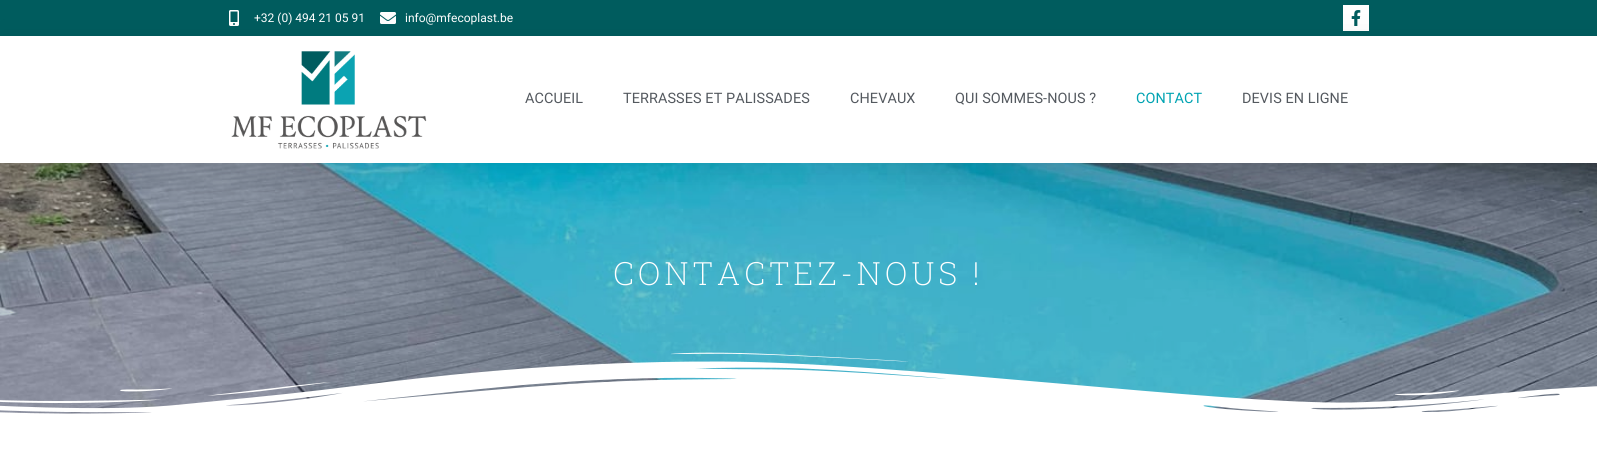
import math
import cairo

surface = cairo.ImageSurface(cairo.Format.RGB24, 1597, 463)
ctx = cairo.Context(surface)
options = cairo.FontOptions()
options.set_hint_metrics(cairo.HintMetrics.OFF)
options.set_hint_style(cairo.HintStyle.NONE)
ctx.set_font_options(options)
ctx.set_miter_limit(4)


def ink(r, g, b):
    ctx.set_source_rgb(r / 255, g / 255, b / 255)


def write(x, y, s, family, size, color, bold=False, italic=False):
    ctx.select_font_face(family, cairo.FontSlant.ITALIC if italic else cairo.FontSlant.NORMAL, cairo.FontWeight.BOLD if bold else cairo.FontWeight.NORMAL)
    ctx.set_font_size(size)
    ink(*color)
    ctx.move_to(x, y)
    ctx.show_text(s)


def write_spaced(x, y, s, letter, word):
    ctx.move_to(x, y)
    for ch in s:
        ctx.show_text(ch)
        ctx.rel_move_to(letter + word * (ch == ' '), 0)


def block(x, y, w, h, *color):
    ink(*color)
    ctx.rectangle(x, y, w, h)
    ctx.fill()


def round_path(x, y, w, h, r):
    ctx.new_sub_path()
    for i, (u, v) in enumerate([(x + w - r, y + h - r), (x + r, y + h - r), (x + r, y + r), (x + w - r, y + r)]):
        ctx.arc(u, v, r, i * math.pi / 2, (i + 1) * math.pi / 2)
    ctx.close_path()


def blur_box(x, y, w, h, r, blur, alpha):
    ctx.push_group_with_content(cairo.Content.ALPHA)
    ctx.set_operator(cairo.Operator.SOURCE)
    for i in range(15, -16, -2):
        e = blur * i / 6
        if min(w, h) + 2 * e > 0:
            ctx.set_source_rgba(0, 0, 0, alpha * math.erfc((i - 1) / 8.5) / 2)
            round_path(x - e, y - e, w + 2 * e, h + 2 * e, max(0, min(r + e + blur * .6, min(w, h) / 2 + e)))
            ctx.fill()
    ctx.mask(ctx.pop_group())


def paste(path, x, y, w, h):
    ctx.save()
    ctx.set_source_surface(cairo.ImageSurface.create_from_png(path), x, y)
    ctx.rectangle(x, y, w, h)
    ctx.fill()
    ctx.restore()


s1 = dict(family="Roboto", size=12, color=(255, 255, 255))

ink(255, 255, 255)
ctx.paint()
block(0, 0, 1597, 36, 0, 92, 94)
paste("pic1.png", 229, 10, 10, 16)
write(254, 22, "+32 (0) 494 21 05 91", **s1)
paste("pic2.png", 380, 12, 16, 12)
write(405, 22, "info@mfecoplast.be", **s1)
block(1343, 5, 26, 26, 255, 255, 255)
paste("pic3.png", 1351, 10, 10, 16)
paste("pic5.png", 0, 163, 1597, 251)
ctx.save()
ctx.set_fill_rule(cairo.FillRule.EVEN_ODD)
ctx.new_path()
ctx.move_to(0, 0)
ctx.line_to(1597, 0)
ctx.line_to(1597, 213)
ctx.line_to(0, 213)
ctx.close_path()
ctx.move_to(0, 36)
ctx.line_to(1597, 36)
ctx.line_to(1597, 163)
ctx.line_to(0, 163)
ctx.close_path()
ctx.clip()
ink(0, 0, 0)
blur_box(0, 41, 1597, 127, 0, 14.5, 0.1)
ctx.restore()
paste("pic4.png", 231, 51, 196, 98)
ctx.set_font_size(14.4)
ink(84, 89, 95)
write_spaced(525, 103, "ACCUEIL", 0.1, 0)
write_spaced(623, 103, "TERRASSES ET PALISSADES", 0.1, 0)
write_spaced(850, 103, "CHEVAUX", 0.1, 0)
write_spaced(955, 103, "QUI SOMMES-NOUS ?", 0.1, 0)
ink(0, 163, 178)
write_spaced(1136, 103, "CONTACT", 0.1, 0)
ink(84, 89, 95)
write_spaced(1242, 103, "DEVIS EN LIGNE", 0.1, 0)
ctx.select_font_face("Roboto Slab ExtraLight")
ctx.set_font_size(32)
ink(255, 255, 255)
write_spaced(613, 285, "CONTACTEZ-NOUS !", 4, 0)
paste("pic6.png", 0, 352, 1597, 71)
surface.write_to_png("screenshot.png")
